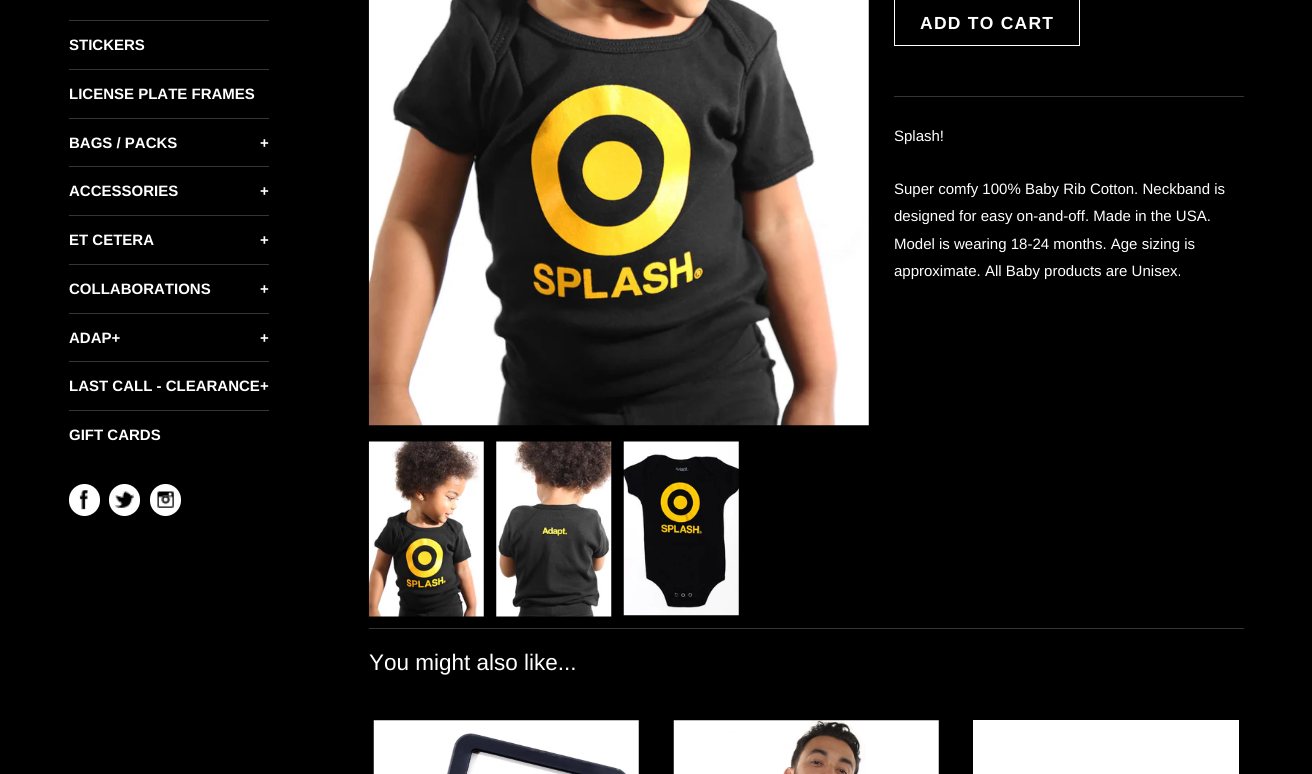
import math
import cairo

surface = cairo.ImageSurface(cairo.Format.RGB24, 1312, 774)
ctx = cairo.Context(surface)
options = cairo.FontOptions()
options.set_hint_metrics(cairo.HintMetrics.OFF)
options.set_hint_style(cairo.HintStyle.NONE)
ctx.set_font_options(options)
ctx.set_miter_limit(4)


def ink(r, g, b):
    ctx.set_source_rgb(r / 255, g / 255, b / 255)


def write(x, y, s, family, size, color, bold=False, italic=False):
    ctx.select_font_face(family, cairo.FontSlant.ITALIC if italic else cairo.FontSlant.NORMAL, cairo.FontWeight.BOLD if bold else cairo.FontWeight.NORMAL)
    ctx.set_font_size(size)
    ink(*color)
    ctx.move_to(x, y)
    ctx.show_text(s)


def write_spaced(x, y, s, letter, word):
    ctx.move_to(x, y)
    for ch in s:
        ctx.show_text(ch)
        ctx.rel_move_to(letter + word * (ch == ' '), 0)


def block(x, y, w, h, *color):
    ink(*color)
    ctx.rectangle(x, y, w, h)
    ctx.fill()


def round_path(x, y, w, h, r):
    ctx.new_sub_path()
    for i, (u, v) in enumerate([(x + w - r, y + h - r), (x + r, y + h - r), (x + r, y + r), (x + w - r, y + r)]):
        ctx.arc(u, v, r, i * math.pi / 2, (i + 1) * math.pi / 2)
    ctx.close_path()


def paste(path, x, y, w, h):
    ctx.save()
    ctx.set_source_surface(cairo.ImageSurface.create_from_png(path), x, y)
    ctx.rectangle(x, y, w, h)
    ctx.fill()
    ctx.restore()


s1 = dict(family="Liberation Sans", size=15, color=(255, 255, 255), bold=True)
s2 = dict(family="Liberation Sans", size=15, color=(255, 255, 255))
s3 = dict(family="Liberation Sans", size=22.5, color=(255, 255, 255))

ink(0, 0, 0)
ctx.paint()
block(69, 20, 200, 1, 53, 53, 53)
write(69, 50, "STICKERS", **s1)
block(69, 69, 200, 1, 53, 53, 53)
write(69, 99, "LICENSE PLATE FRAMES", **s1)
block(69, 118, 200, 1, 53, 53, 53)
write(69, 148, "BAGS / PACKS", **s1)
write(260, 148, "+", **s1)
block(69, 166, 200, 1, 53, 53, 53)
write(69, 196, "ACCESSORIES", **s1)
write(260, 196, "+", **s1)
block(69, 215, 200, 1, 53, 53, 53)
write(69, 245, "ET CETERA", **s1)
write(260, 245, "+", **s1)
block(69, 264, 200, 1, 53, 53, 53)
write(69, 294, "COLLABORATIONS", **s1)
write(260, 294, "+", **s1)
block(69, 313, 200, 1, 53, 53, 53)
write(69, 343, "ADAP+", **s1)
write(260, 343, "+", **s1)
block(69, 361, 200, 1, 53, 53, 53)
write(69, 391, "LAST CALL - CLEARANCE", **s1)
write(260, 391, "+", **s1)
block(69, 410, 200, 1, 53, 53, 53)
write(69, 440, "GIFT CARDS", **s1)
round_path(69, 484, 31, 32, 15.5)
ctx.fill()
paste("pic1.png", 79, 490, 9, 20)
round_path(109, 484, 31, 32, 15.5)
ctx.fill()
paste("pic2.png", 115, 491, 19, 17)
round_path(150, 484, 31, 32, 15.5)
ctx.fill()
paste("pic3.png", 157, 491, 17, 17)
paste("pic4.png", 368, 0, 501, 426)
paste("pic5.png", 368, 441, 116, 176)
paste("pic6.png", 496, 441, 116, 176)
paste("pic7.png", 623, 441, 116, 175)
ctx.rectangle(894.5, -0.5, 185, 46)
ctx.set_line_width(1)
ctx.stroke()
ctx.set_font_size(17.5)
write_spaced(920, 29, "ADD TO CART", 1.25, 0)
block(894, 96, 350, 1, 53, 53, 53)
write(894, 141, "Splash!", **s2)
write(894, 194, "Super comfy 100% Baby Rib Cotton. Neckband is", **s2)
write(894, 221, "designed for easy on-and-off. Made in the USA.", **s2)
write(894, 249, "Model is wearing 18-24 months. Age sizing is", **s2)
write(894, 276, "approximate. All Baby products are Unisex.", **s2)
block(369, 628, 875, 1, 53, 53, 53)
write(369, 670, "You might also like...", **s3)
paste("pic8.png", 373, 720, 266, 54)
paste("pic9.png", 673, 720, 266, 54)
block(973, 720, 266, 54, 255, 255, 255)
surface.write_to_png("screenshot.png")
